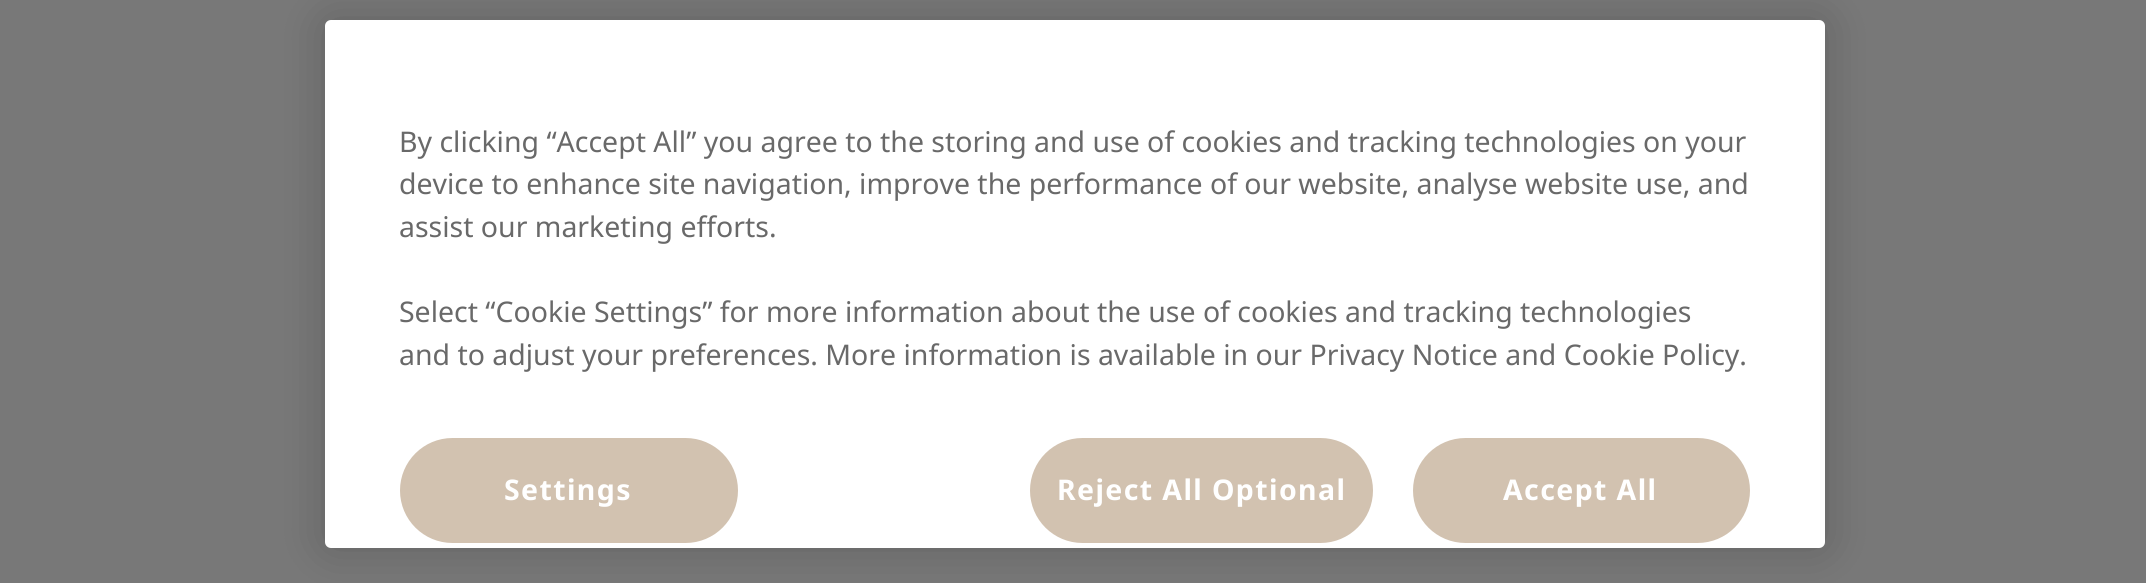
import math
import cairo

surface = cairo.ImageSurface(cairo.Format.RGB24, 2146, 583)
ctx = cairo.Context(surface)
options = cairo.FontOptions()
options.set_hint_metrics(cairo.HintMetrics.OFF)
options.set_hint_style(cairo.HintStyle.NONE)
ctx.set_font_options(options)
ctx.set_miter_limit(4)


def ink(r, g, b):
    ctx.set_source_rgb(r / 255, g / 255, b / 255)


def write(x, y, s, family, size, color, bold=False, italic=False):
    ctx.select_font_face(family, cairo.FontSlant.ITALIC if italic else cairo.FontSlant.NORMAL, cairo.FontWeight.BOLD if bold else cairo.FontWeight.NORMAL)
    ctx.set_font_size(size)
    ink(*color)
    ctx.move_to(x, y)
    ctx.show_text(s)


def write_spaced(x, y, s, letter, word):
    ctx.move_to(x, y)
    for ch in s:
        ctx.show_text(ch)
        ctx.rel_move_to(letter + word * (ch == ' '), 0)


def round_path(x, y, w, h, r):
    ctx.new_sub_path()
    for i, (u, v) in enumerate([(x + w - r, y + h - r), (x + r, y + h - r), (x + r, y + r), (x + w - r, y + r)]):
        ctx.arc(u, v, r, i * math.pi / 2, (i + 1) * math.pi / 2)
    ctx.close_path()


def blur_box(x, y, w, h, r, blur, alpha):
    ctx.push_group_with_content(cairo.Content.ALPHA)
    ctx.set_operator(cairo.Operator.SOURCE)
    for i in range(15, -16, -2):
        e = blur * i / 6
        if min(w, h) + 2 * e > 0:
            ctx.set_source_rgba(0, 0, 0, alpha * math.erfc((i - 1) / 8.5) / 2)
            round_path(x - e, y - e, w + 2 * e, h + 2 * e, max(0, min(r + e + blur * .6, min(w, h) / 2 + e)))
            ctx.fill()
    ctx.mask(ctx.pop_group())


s1 = dict(family="Noto Sans", size=28.45, color=(105, 105, 105))

ink(120, 120, 120)
ctx.paint()
ink(0, 0, 0)
blur_box(325, 20, 1500, 528, 6, 22.5, 0.2)
ink(255, 255, 255)
round_path(325, 20, 1500, 528, 6)
ctx.fill()
write(399, 152, "By clicking “Accept All” you agree to the storing and use of cookies and tracking technologies on your", **s1)
write(399, 194, "device to enhance site navigation, improve the performance of our website, analyse website use, and", **s1)
write(399, 237, "assist our marketing efforts.", **s1)
write(399, 322, "Select “Cookie Settings” for more information about the use of cookies and tracking technologies", **s1)
write(399, 365, "and to adjust your preferences. More information is available in our Privacy Notice and Cookie Policy.", **s1)
ink(210, 194, 176)
round_path(401.5, 439.5, 335, 102, 51)
ctx.fill_preserve()
ctx.set_line_width(3)
ctx.stroke()
ctx.select_font_face("Noto Sans", cairo.FontSlant.NORMAL, cairo.FontWeight.BOLD)
ink(255, 255, 255)
write_spaced(504, 500, "Settings", 1.4, 0)
ink(210, 194, 176)
round_path(1031.5, 439.5, 340, 102, 51)
ctx.fill_preserve()
ctx.stroke()
ink(255, 255, 255)
write_spaced(1057, 500, "Reject All Optional", 1.4, 0)
ink(210, 194, 176)
round_path(1414.5, 439.5, 334, 102, 51)
ctx.fill_preserve()
ctx.stroke()
ink(255, 255, 255)
write_spaced(1503, 500, "Accept All", 1.4, 0)
surface.write_to_png("screenshot.png")
